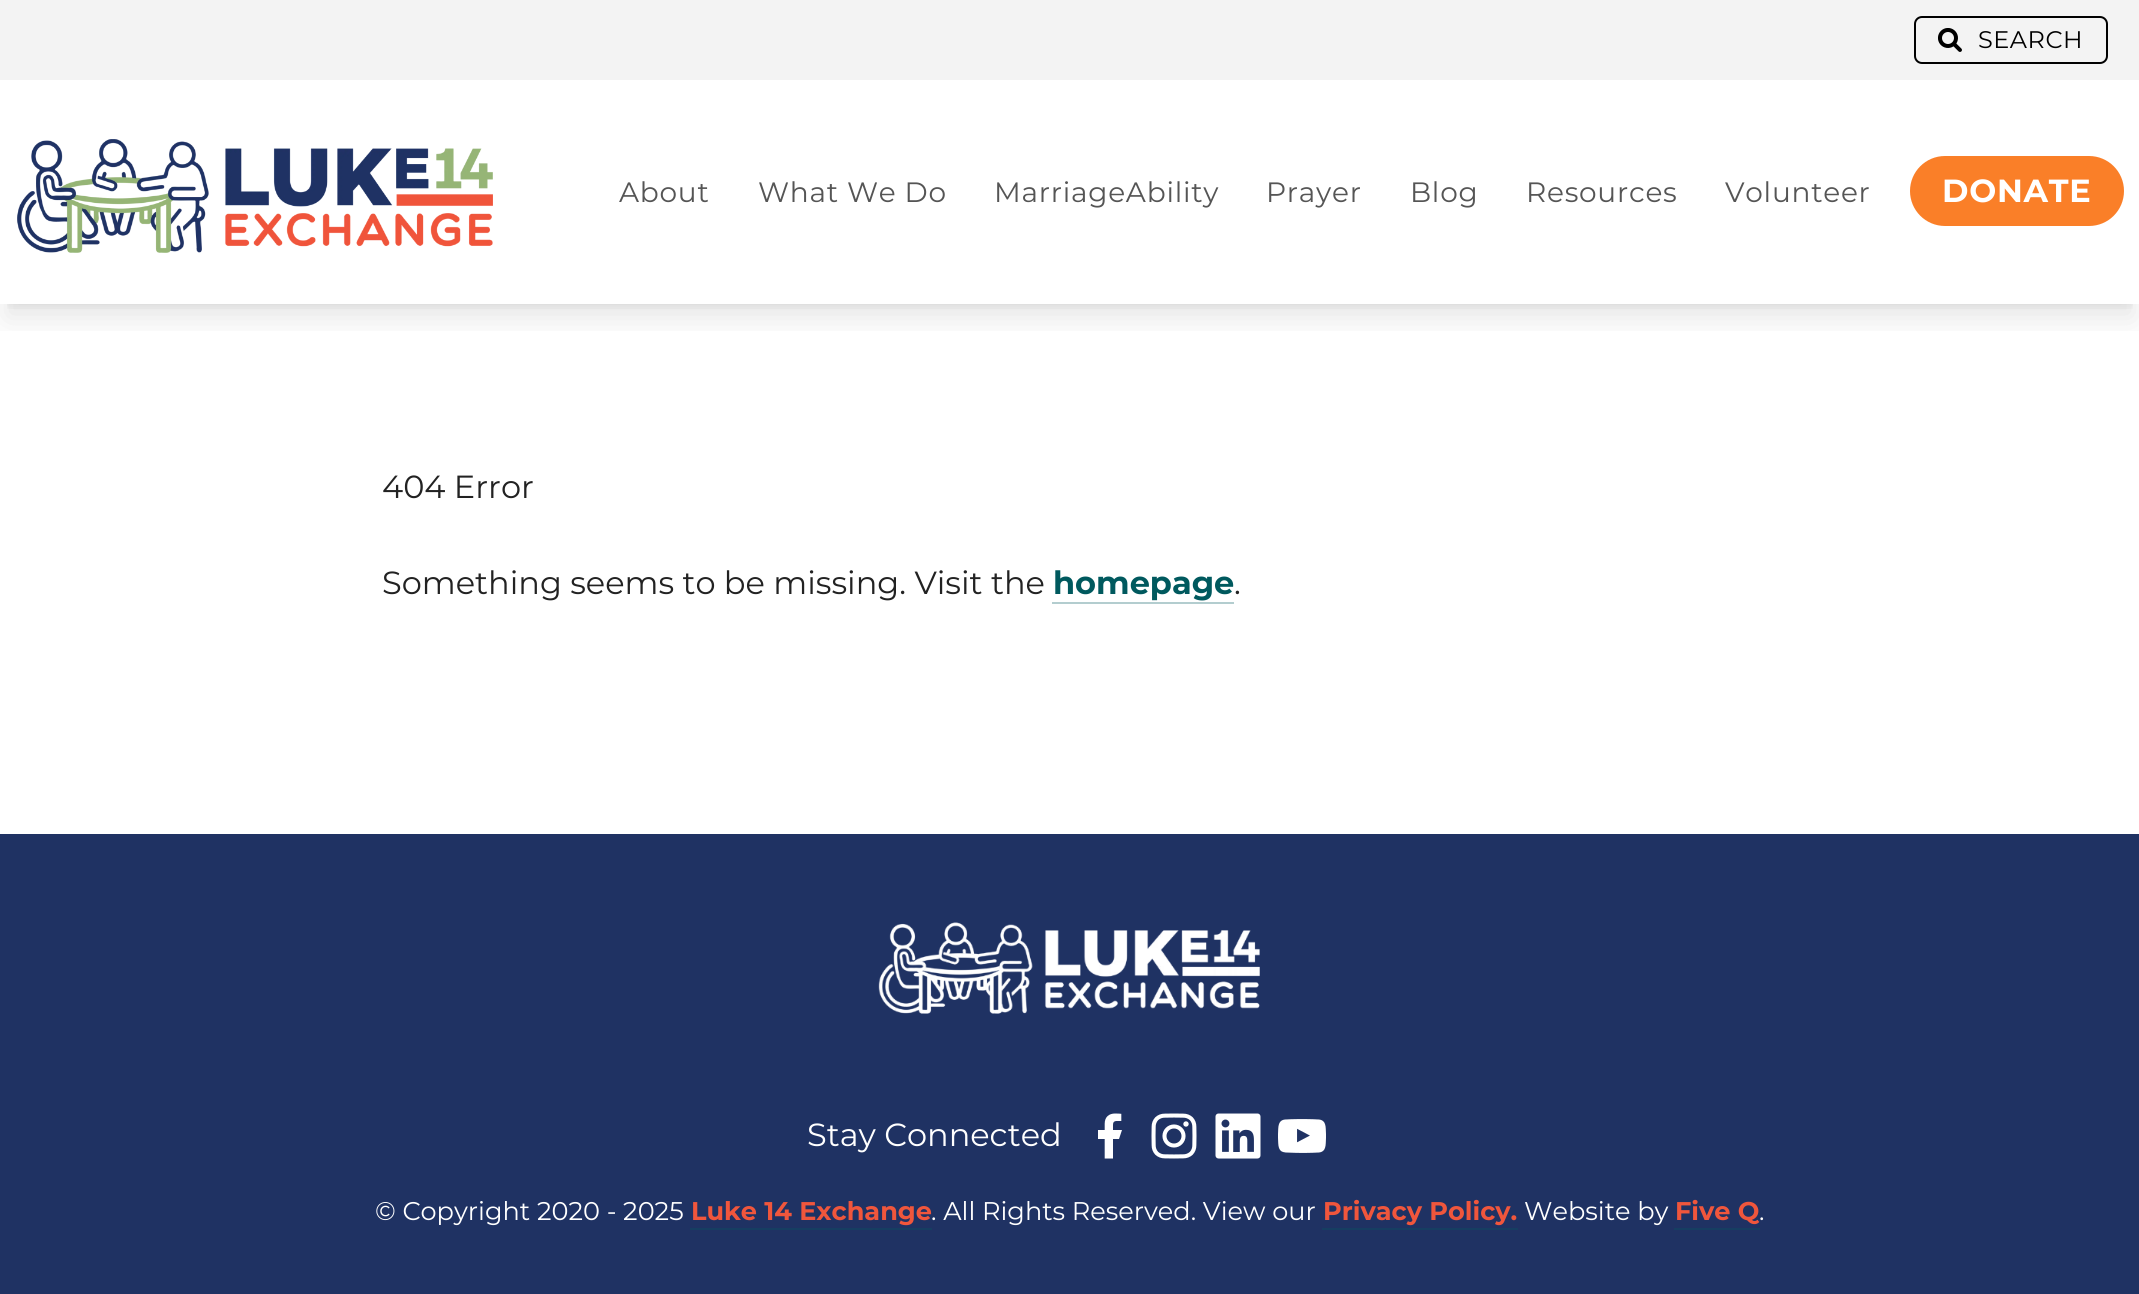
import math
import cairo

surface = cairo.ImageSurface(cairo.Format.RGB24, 2139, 1294)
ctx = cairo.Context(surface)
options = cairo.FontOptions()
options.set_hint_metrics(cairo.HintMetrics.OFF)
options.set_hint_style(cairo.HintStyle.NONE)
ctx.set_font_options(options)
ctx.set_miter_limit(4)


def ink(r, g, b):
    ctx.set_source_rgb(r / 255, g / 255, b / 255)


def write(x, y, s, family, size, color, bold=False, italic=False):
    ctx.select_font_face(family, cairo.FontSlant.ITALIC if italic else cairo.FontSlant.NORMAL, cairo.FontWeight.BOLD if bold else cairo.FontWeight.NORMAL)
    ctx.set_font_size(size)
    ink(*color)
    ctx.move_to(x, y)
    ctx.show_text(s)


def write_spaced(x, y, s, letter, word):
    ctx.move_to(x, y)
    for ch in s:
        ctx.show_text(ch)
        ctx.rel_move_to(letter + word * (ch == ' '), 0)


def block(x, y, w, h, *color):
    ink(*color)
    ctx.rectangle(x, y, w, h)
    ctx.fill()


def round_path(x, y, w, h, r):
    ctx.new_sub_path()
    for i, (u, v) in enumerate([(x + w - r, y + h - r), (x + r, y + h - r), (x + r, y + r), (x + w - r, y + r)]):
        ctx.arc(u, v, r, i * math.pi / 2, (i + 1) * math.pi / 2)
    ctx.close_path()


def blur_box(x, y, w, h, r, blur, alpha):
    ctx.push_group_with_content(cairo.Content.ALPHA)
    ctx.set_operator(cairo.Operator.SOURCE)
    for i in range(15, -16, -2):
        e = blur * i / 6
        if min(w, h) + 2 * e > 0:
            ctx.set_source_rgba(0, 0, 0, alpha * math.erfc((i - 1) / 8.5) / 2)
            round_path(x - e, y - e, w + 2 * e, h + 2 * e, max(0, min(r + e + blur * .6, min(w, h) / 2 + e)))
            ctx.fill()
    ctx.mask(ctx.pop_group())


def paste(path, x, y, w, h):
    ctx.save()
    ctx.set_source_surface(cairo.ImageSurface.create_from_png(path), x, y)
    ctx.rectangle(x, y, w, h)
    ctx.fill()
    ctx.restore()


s1 = dict(family="Montserrat", size=32, color=(34, 34, 34))
s2 = dict(family="Montserrat", size=32, color=(0, 89, 94), bold=True)
s3 = dict(family="Montserrat", size=32, color=(255, 255, 255))
s4 = dict(family="Montserrat", size=25.6, color=(255, 255, 255))
s5 = dict(family="Montserrat", size=25.6, color=(240, 86, 60), bold=True)

ink(255, 255, 255)
ctx.paint()
block(0, 0, 2139, 80, 243, 243, 243)
round_path(1915, 17, 192, 46, 7)
ink(0, 0, 0)
ctx.stroke()
paste("pic1.png", 1938, 28, 24, 24)
ctx.select_font_face("Montserrat")
ctx.set_font_size(24)
write_spaced(1978, 48, "SEARCH", 0.5, 0)
ctx.save()
ctx.rectangle(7, 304, 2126, 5)
ctx.clip()
ink(0, 0, 0)
blur_box(8, 96, 2124, 208, 0, 6, 0.1)
ctx.restore()
ctx.save()
ctx.rectangle(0, 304, 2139, 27)
ctx.clip()
ink(0, 0, 0)
blur_box(6, 106, 2128, 212, 0, 15, 0.1)
ctx.restore()
paste("pic2.png", 17, 139, 476, 114)
ctx.set_font_size(28)
ink(85, 85, 85)
write_spaced(619, 202, "About", 0.75, 0)
write_spaced(758, 202, "What We Do", 0.75, 0)
write_spaced(994, 202, "MarriageAbility", 0.75, 0)
write_spaced(1266, 202, "Prayer", 0.75, 0)
write_spaced(1410, 202, "Blog", 0.75, 0)
write_spaced(1526, 202, "Resources", 0.75, 0)
write_spaced(1725, 202, "Volunteer", 0.75, 0)
ink(250, 127, 40)
round_path(1910, 156, 214, 70, 35)
ctx.fill()
ctx.select_font_face("Montserrat", cairo.FontSlant.NORMAL, cairo.FontWeight.BOLD)
ctx.set_font_size(32)
ink(255, 255, 255)
write_spaced(1942, 202, "DONATE", 0.75, 0)
write(382, 498, "404 Error", **s1)
write(382, 594, "Something seems to be missing. Visit the", **s1)
write(1053, 594, "homepage", **s2)
block(1052, 602, 182, 2, 179, 205, 207)
write(1234, 594, ".", **s1)
block(0, 834, 2139, 460, 31, 50, 99)
paste("pic3.png", 878, 922, 382, 92)
write(807, 1146, "Stay Connected", **s3)
paste("pic4.png", 1098, 1113, 24, 46)
paste("pic5.png", 1151, 1113, 46, 46)
paste("pic6.png", 1215, 1113, 46, 46)
paste("pic7.png", 1278, 1119, 48, 34)
write(375, 1220, "© Copyright 2020 - 2025", **s4)
write(691, 1220, "Luke 14 Exchange", **s5)
block(690, 1228, 242, 2, 22, 62, 98)
write(931, 1220, ". All Rights Reserved. View our", **s4)
write(1323, 1220, "Privacy Policy.", **s5)
block(1322, 1228, 196, 2, 22, 62, 98)
write(1524, 1220, "Website by", **s4)
write(1675, 1220, "Five Q", **s5)
block(1674, 1228, 86, 2, 22, 62, 98)
write(1759, 1220, ".", **s4)
surface.write_to_png("screenshot.png")
